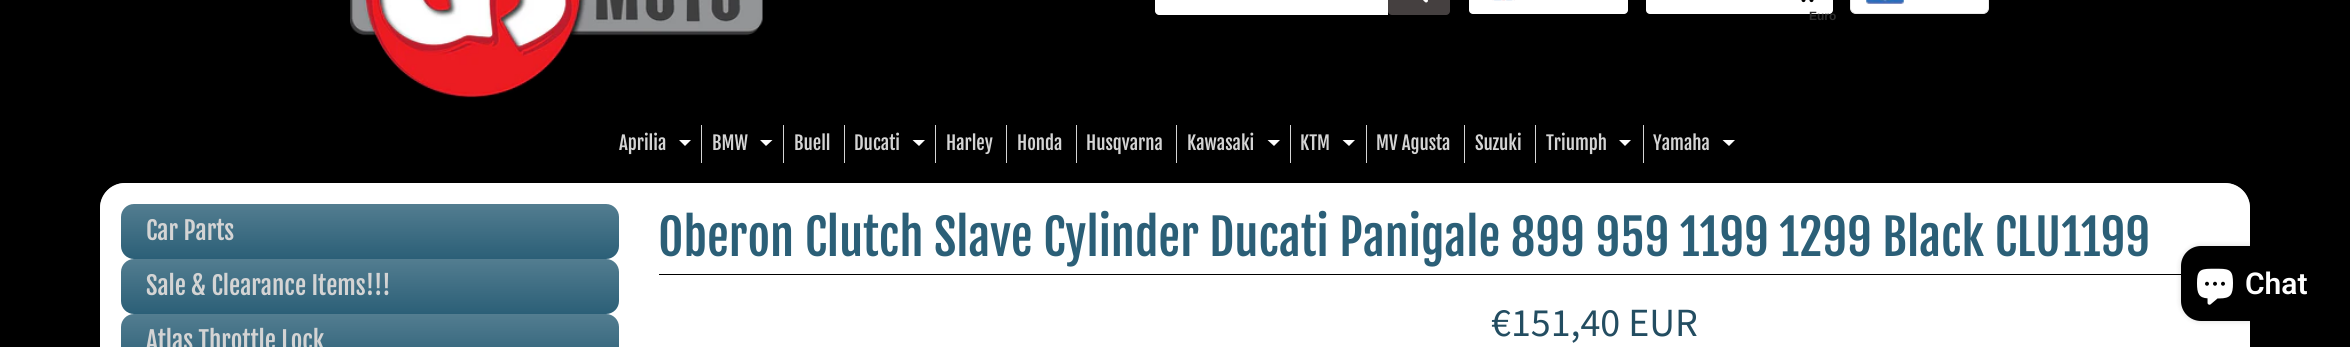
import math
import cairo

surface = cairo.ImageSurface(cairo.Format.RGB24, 2350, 347)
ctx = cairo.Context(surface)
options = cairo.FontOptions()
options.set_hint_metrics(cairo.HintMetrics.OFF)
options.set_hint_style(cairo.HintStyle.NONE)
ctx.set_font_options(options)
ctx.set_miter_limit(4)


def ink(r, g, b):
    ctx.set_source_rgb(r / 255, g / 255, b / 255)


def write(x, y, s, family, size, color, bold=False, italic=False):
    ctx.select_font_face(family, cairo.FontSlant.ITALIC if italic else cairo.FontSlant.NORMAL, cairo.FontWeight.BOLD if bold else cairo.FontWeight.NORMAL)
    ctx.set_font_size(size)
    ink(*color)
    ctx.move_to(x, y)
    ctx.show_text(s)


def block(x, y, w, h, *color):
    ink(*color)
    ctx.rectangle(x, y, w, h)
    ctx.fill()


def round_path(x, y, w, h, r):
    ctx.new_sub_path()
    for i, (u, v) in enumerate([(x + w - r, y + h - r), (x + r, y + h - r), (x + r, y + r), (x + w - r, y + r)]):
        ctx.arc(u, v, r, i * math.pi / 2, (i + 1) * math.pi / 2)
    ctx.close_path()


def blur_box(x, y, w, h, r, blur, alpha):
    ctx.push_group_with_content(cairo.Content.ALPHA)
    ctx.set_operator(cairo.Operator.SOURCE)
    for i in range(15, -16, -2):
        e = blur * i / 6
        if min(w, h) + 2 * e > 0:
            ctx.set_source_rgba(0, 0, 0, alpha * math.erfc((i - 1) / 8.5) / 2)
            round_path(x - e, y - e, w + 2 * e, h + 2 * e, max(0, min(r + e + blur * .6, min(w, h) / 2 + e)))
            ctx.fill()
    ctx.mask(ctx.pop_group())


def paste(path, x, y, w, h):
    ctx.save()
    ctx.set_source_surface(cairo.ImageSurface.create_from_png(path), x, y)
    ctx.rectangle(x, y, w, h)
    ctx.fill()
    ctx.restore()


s1 = dict(family="Liberation Sans", size=12, color=(45, 45, 45), bold=True)
s2 = dict(family="Fjalla One", size=18.75, color=(212, 212, 212))
s3 = dict(family="Fjalla One", size=25, color=(212, 212, 212))
s4 = dict(family="Fjalla One", size=48.8, color=(43, 95, 119))
s5 = dict(family="Source Sans Pro", size=40, color=(35, 77, 97))
s6 = dict(family="Roboto SemiBold", size=30, color=(255, 255, 255))

ink(0, 0, 0)
ctx.paint()
paste("pic1.png", 350, 0, 413, 98)
ink(255, 255, 255)
ctx.new_path()
ctx.move_to(1159, -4)
ctx.line_to(1388, -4)
ctx.line_to(1388, 15)
ctx.line_to(1159, 15)
ctx.curve_to(1157, 15, 1155, 13, 1155, 11)
ctx.line_to(1155, 0)
ctx.curve_to(1155, -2, 1157, -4, 1159, -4)
ctx.close_path()
ctx.fill()
ink(69, 64, 64)
round_path(1388, -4, 62, 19, 4)
ctx.fill()
paste("pic2.png", 1423, 0, 5, 3)
ink(255, 255, 255)
round_path(1469, -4, 159, 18, 4)
ctx.fill()
paste("pic3.png", 1492, 0, 23, 1)
round_path(1646, -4, 187, 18, 4)
ctx.fill()
paste("pic4.png", 1801, 0, 13, 3)
round_path(1850.5, -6.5, 138, 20, 5.5)
ctx.fill_preserve()
ink(232, 232, 232)
ctx.set_line_width(1)
ctx.stroke()
paste("pic5.png", 1866, 0, 38, 4)
write(1809, 20, "Euro", **s1)
write(619, 150, "Aprilia", **s2)
ink(255, 255, 255)
ctx.new_path()
ctx.move_to(679, 140)
ctx.line_to(691, 140)
ctx.line_to(685, 146)
ctx.close_path()
ctx.fill()
block(701, 125, 1, 38, 212, 212, 212)
write(712, 150, "BMW", **s2)
ink(255, 255, 255)
ctx.new_path()
ctx.move_to(760, 140)
ctx.line_to(772.5, 140)
ctx.line_to(766, 146)
ctx.close_path()
ctx.fill()
block(783, 125, 1, 38, 212, 212, 212)
write(794, 150, "Buell", **s2)
block(844, 125, 1, 38, 212, 212, 212)
write(854, 150, "Ducati", **s2)
ink(255, 255, 255)
ctx.new_path()
ctx.move_to(912.5, 140)
ctx.line_to(925, 140)
ctx.line_to(919, 146)
ctx.close_path()
ctx.fill()
block(935, 125, 1, 38, 212, 212, 212)
write(946, 150, "Harley", **s2)
block(1006, 125, 1, 38, 212, 212, 212)
write(1017, 150, "Honda", **s2)
block(1076, 125, 1, 38, 212, 212, 212)
write(1086, 150, "Husqvarna", **s2)
block(1176, 125, 1, 38, 212, 212, 212)
write(1187, 150, "Kawasaki", **s2)
ink(255, 255, 255)
ctx.new_path()
ctx.move_to(1267.5, 140)
ctx.line_to(1280, 140)
ctx.line_to(1274, 146)
ctx.close_path()
ctx.fill()
block(1290, 125, 1, 38, 212, 212, 212)
write(1300, 150, "KTM", **s2)
ink(255, 255, 255)
ctx.new_path()
ctx.move_to(1342.5, 140)
ctx.line_to(1355, 140)
ctx.line_to(1349, 146)
ctx.close_path()
ctx.fill()
block(1366, 125, 1, 38, 212, 212, 212)
write(1376, 150, "MV Agusta", **s2)
block(1464, 125, 1, 38, 212, 212, 212)
write(1475, 150, "Suzuki", **s2)
block(1535, 125, 1, 38, 212, 212, 212)
write(1546, 150, "Triumph", **s2)
ink(255, 255, 255)
ctx.new_path()
ctx.move_to(1619, 140)
ctx.line_to(1631, 140)
ctx.line_to(1625, 146)
ctx.close_path()
ctx.fill()
block(1643, 125, 1, 38, 212, 212, 212)
write(1653, 150, "Yamaha", **s2)
ink(255, 255, 255)
ctx.new_path()
ctx.move_to(1722.5, 140)
ctx.line_to(1735, 140)
ctx.line_to(1729, 146)
ctx.close_path()
ctx.fill()
round_path(100, 183, 2150, 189, 25)
ctx.fill()
round_path(100.5, 183.5, 2149, 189, 24.5)
ctx.set_source_rgba(1, 1, 1, 0.7)
ctx.stroke()
gradient = cairo.LinearGradient(370, 204, 370, 259)
gradient.add_color_stop_rgba(0, 0.325, 0.49, 0.565, 1)
gradient.add_color_stop_rgba(1, 0.169, 0.373, 0.467, 1)
ctx.set_source(gradient)
round_path(121, 204, 498, 55, 13)
ctx.fill()
write(146, 240, "Car Parts", **s3)
gradient = cairo.LinearGradient(370, 259, 370, 314)
gradient.add_color_stop_rgba(0, 0.325, 0.49, 0.565, 1)
gradient.add_color_stop_rgba(1, 0.169, 0.373, 0.467, 1)
ctx.set_source(gradient)
round_path(121, 259, 498, 55, 13)
ctx.fill()
write(146, 295, "Sale & Clearance Items!!!", **s3)
gradient = cairo.LinearGradient(370, 314, 370, 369)
gradient.add_color_stop_rgba(0, 0.325, 0.49, 0.565, 1)
gradient.add_color_stop_rgba(1, 0.169, 0.373, 0.467, 1)
ctx.set_source(gradient)
round_path(121, 314, 498, 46, 13)
ctx.fill()
write(146, 350, "Atlas Throttle Lock", **s3)
block(659, 274, 1522, 1, 0, 0, 0)
write(658, 256, "Oberon Clutch Slave Cylinder Ducati Panigale 899 959 1199 1299 Black CLU1199", **s4)
write(1491, 336, "€151,40 EUR", **s5)
ink(0, 0, 0)
blur_box(2181, 246, 142, 75, 20, 3, 0.15)
ink(0, 0, 0)
round_path(2181, 246, 142, 75, 20)
ctx.fill()
paste("pic6.png", 2197, 268, 36, 37)
write(2245, 294, "Chat", **s6)
surface.write_to_png("screenshot.png")
